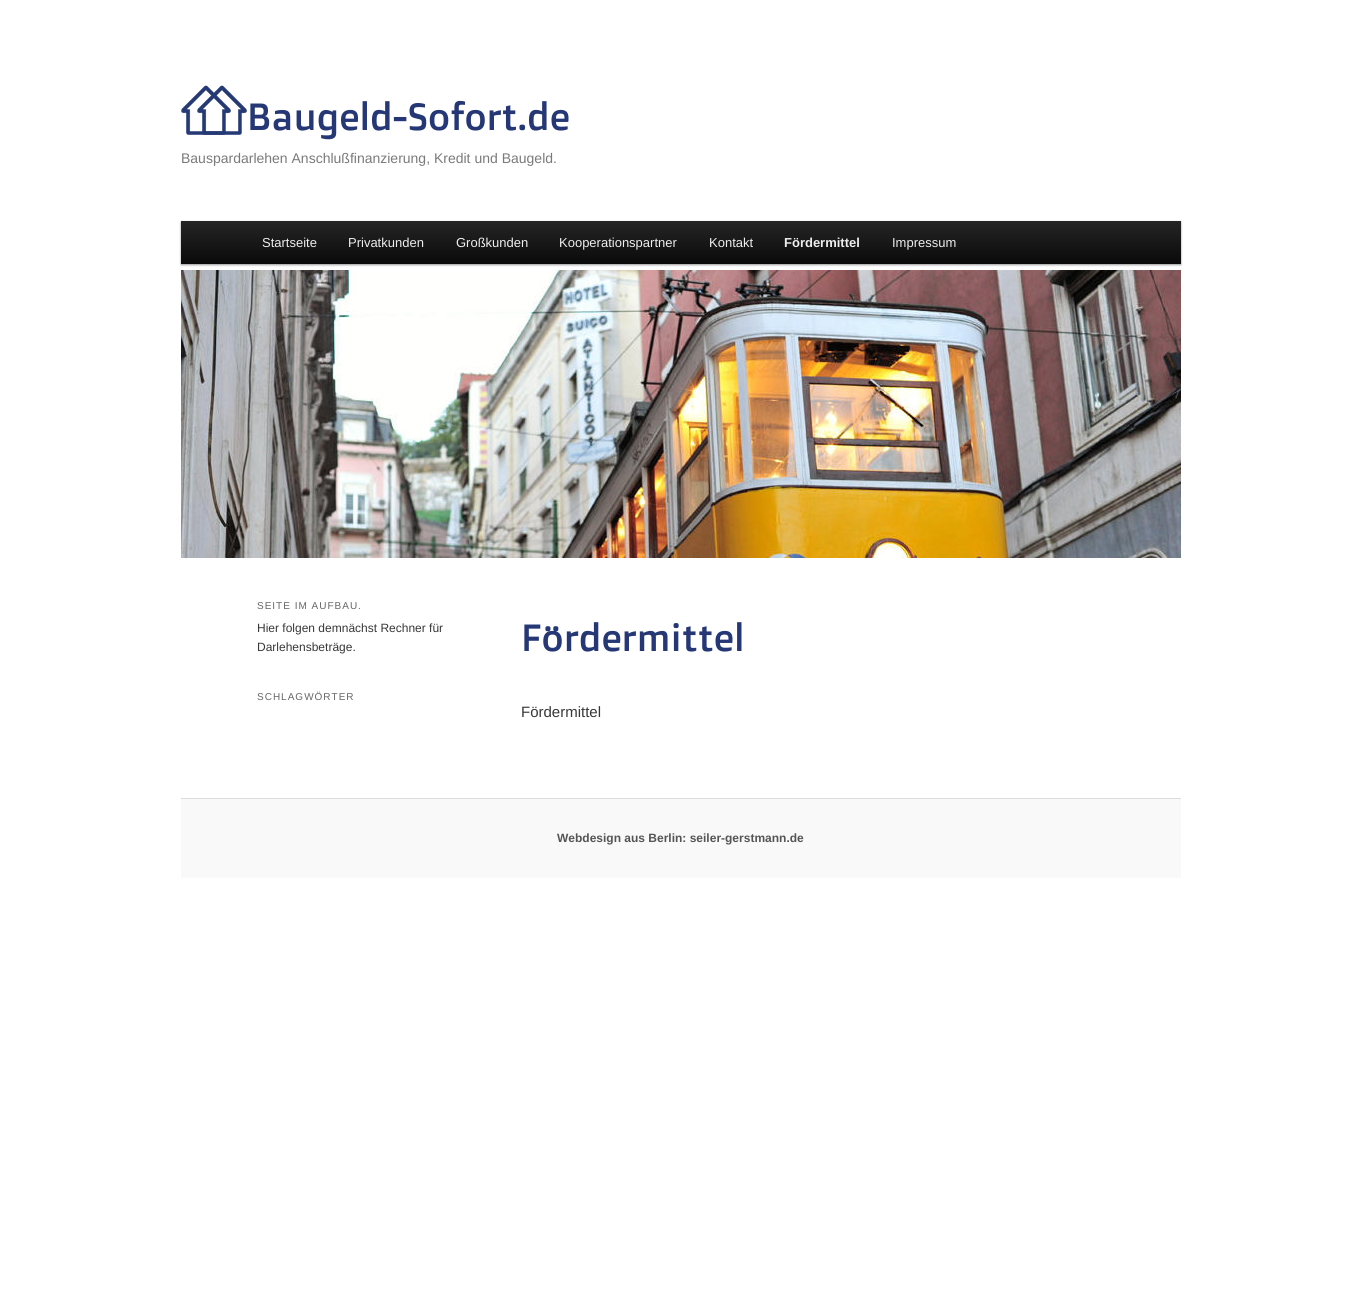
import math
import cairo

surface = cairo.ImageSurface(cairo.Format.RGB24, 1361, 1306)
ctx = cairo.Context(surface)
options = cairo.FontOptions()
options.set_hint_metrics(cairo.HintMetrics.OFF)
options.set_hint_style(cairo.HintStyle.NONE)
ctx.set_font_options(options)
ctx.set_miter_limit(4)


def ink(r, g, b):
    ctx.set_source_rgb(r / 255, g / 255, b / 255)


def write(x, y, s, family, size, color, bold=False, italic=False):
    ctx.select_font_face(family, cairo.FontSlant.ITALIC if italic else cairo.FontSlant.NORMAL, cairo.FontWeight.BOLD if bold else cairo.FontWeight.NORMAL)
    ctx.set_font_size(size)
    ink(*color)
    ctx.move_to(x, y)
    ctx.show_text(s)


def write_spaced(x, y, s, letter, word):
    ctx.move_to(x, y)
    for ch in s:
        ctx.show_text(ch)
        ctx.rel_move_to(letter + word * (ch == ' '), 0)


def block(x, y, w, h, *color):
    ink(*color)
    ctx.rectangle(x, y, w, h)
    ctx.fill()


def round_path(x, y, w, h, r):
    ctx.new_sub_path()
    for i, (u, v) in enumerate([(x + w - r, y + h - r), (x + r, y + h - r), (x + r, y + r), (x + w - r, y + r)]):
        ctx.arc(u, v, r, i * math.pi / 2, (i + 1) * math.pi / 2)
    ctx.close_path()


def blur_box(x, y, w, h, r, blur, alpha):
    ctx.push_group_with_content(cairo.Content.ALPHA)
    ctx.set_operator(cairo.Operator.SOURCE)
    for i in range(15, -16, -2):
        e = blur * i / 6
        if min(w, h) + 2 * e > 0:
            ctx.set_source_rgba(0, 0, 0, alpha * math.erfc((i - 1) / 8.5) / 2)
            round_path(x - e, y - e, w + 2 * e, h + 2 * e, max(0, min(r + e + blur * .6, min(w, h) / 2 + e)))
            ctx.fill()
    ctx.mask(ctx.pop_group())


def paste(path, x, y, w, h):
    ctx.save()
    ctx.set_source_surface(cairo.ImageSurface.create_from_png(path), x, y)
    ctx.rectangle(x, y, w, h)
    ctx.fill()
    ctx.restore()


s1 = dict(family="Doppio One", size=38, color=(37, 56, 117))
s2 = dict(family="Liberation Sans", size=14, color=(122, 122, 122))
s3 = dict(family="Liberation Sans", size=13, color=(238, 238, 238))
s4 = dict(family="Liberation Sans", size=13, color=(238, 238, 238), bold=True)
s5 = dict(family="Liberation Sans", size=12, color=(55, 55, 55))
s6 = dict(family="Liberation Sans", size=15, color=(55, 55, 55))
s7 = dict(family="Liberation Sans", size=12, color=(85, 85, 85), bold=True)

ink(255, 255, 255)
ctx.paint()
paste("pic1.png", 181, 85, 66, 50)
write(247, 130, "Baugeld-Sofort.de", **s1)
write(181, 163, "Bauspardarlehen Anschlußfinanzierung, Kredit und Baugeld.", **s2)
ink(0, 0, 0)
blur_box(181, 222, 1000, 43, 0, 1, 0.4)
gradient = cairo.LinearGradient(681, 221, 681, 264)
gradient.add_color_stop_rgba(0, 0.145, 0.145, 0.145, 1)
gradient.add_color_stop_rgba(1, 0.039, 0.039, 0.039, 1)
ctx.set_source(gradient)
ctx.rectangle(181, 221, 1000, 43)
ctx.fill()
write(262, 247, "Startseite", **s3)
write(348, 247, "Privatkunden", **s3)
write(456, 247, "Großkunden", **s3)
write(559, 247, "Kooperationspartner", **s3)
write(709, 247, "Kontakt", **s3)
write(784, 247, "Fördermittel", **s4)
write(892, 247, "Impressum", **s3)
paste("pic2.png", 181, 270, 1000, 288)
ctx.set_font_size(10)
ink(102, 102, 102)
write_spaced(257, 609, "SEITE IM AUFBAU.", 1, 0)
write(257, 632, "Hier folgen demnächst Rechner für", **s5)
write(257, 651, "Darlehensbeträge.", **s5)
ctx.set_font_size(10)
ink(102, 102, 102)
write_spaced(257, 700, "SCHLAGWÖRTER", 1, 0)
write(521, 651, "Fördermittel", **s1)
write(521, 717, "Fördermittel", **s6)
block(181, 799, 1000, 79, 249, 249, 249)
block(181, 798, 1000, 1, 221, 221, 221)
write(557, 842, "Webdesign aus Berlin: seiler-gerstmann.de", **s7)
surface.write_to_png("screenshot.png")
